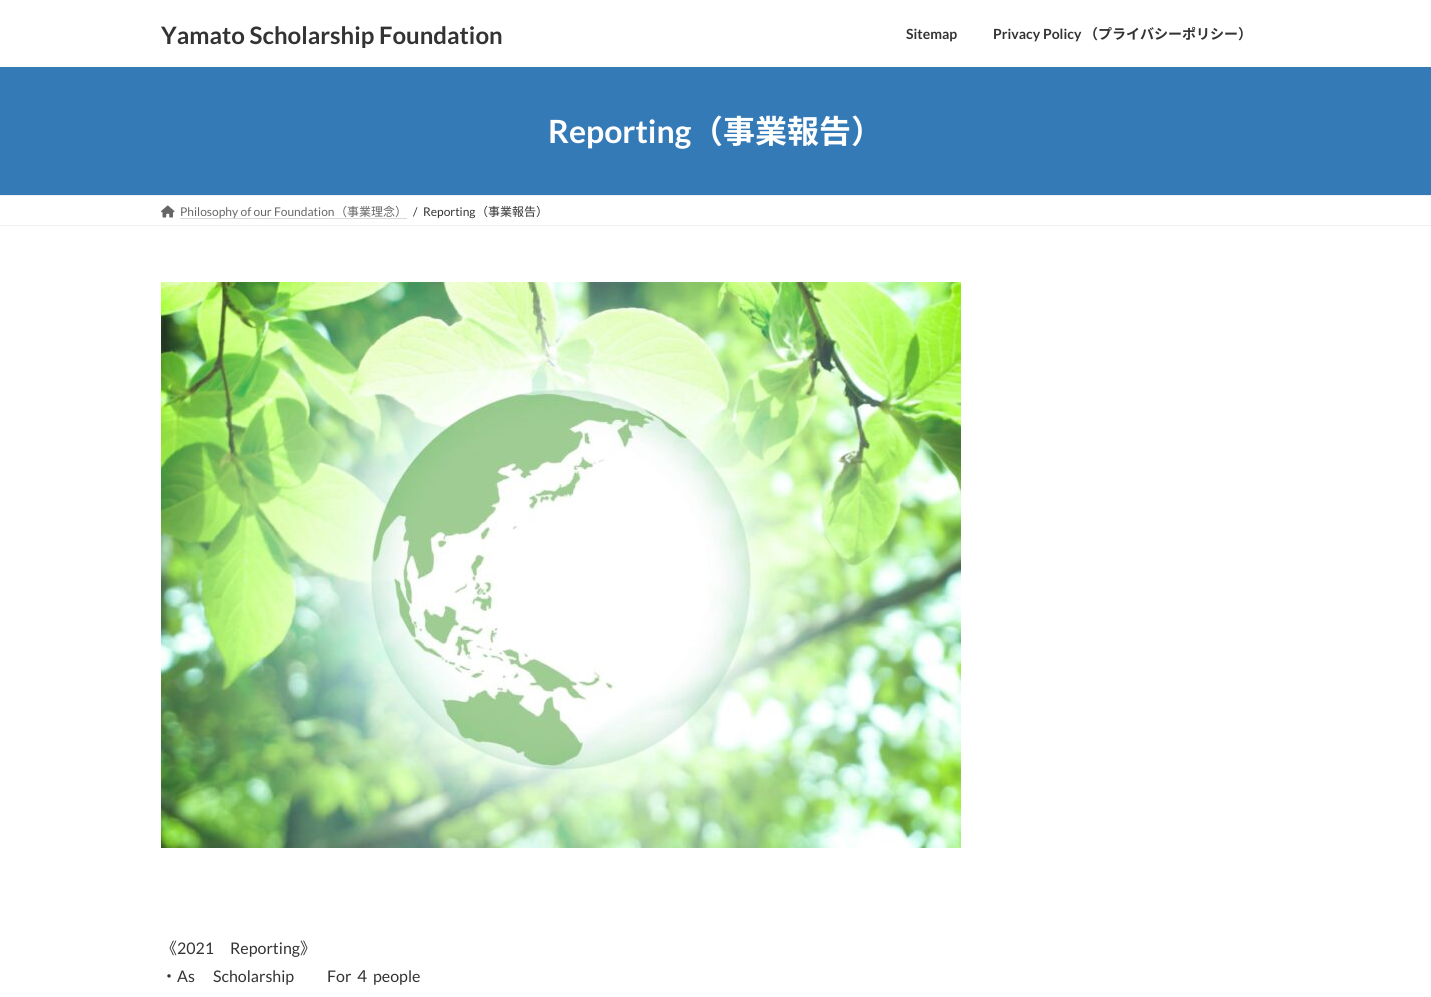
import math
import cairo

surface = cairo.ImageSurface(cairo.Format.RGB24, 1431, 997)
ctx = cairo.Context(surface)
options = cairo.FontOptions()
options.set_hint_metrics(cairo.HintMetrics.OFF)
options.set_hint_style(cairo.HintStyle.NONE)
ctx.set_font_options(options)
ctx.set_miter_limit(4)


def ink(r, g, b):
    ctx.set_source_rgb(r / 255, g / 255, b / 255)


def write(x, y, s, family, size, color, bold=False, italic=False):
    ctx.select_font_face(family, cairo.FontSlant.ITALIC if italic else cairo.FontSlant.NORMAL, cairo.FontWeight.BOLD if bold else cairo.FontWeight.NORMAL)
    ctx.set_font_size(size)
    ink(*color)
    ctx.move_to(x, y)
    ctx.show_text(s)


def block(x, y, w, h, *color):
    ink(*color)
    ctx.rectangle(x, y, w, h)
    ctx.fill()


def paste(path, x, y, w, h):
    ctx.save()
    ctx.set_source_surface(cairo.ImageSurface.create_from_png(path), x, y)
    ctx.rectangle(x, y, w, h)
    ctx.fill()
    ctx.restore()


s1 = dict(family="Lato", size=24, color=(51, 51, 51), bold=True)
s2 = dict(family="Lato", size=14, color=(51, 51, 51), bold=True)
s3 = dict(family="Noto Sans JP", size=14, color=(51, 51, 51), bold=True)
s4 = dict(family="Lato", size=32, color=(255, 255, 255), bold=True)
s5 = dict(family="Noto Sans JP", size=32, color=(255, 255, 255), bold=True)
s6 = dict(family="Lato", size=12, color=(102, 102, 102))
s7 = dict(family="Noto Sans JP", size=12, color=(102, 102, 102))
s8 = dict(family="Lato", size=12, color=(51, 51, 51))
s9 = dict(family="Noto Sans JP", size=12, color=(51, 51, 51))
s10 = dict(family="Noto Sans JP", size=16, color=(51, 51, 51))
s11 = dict(family="Lato", size=16, color=(51, 51, 51))

ink(255, 255, 255)
ctx.paint()
write(161, 44, "Yamato Scholarship Foundation", **s1)
write(906, 39, "Sitemap", **s2)
write(993, 39, "Privacy Policy", **s2)
write(1084, 39, "（プライバシーポリシー）", **s3)
block(0, 67, 1431, 128, 51, 122, 183)
write(548, 143, "Reporting", **s4)
write(691, 143, "（事業報告）", **s5)
block(0, 195, 1431, 1, 240, 240, 240)
block(0, 225, 1431, 1, 240, 240, 240)
paste("pic1.png", 161, 205, 14, 13)
ctx.new_path()
ctx.move_to(180.5, 218.5)
ctx.line_to(407, 218.5)
ink(179, 179, 179)
ctx.set_line_width(1)
ctx.set_dash([1, 1])
ctx.stroke()
write(180, 216, "Philosophy of our Foundation", **s6)
write(335, 216, "（事業理念）", **s7)
write(413, 216, "/", **s8)
write(423, 216, "Reporting", **s8)
write(476, 216, "（事業報告）", **s9)
paste("pic2.png", 161, 282, 800, 566)
write(161, 954, "《", **s10)
write(177, 954, "2021", **s11)
write(230, 954, "Reporting", **s11)
write(300, 954, "》", **s10)
write(161, 982, "・", **s10)
write(177, 982, "As", **s11)
write(213, 982, "Scholarship", **s11)
write(327, 982, "For", **s11)
write(354, 982, "４", **s10)
write(373, 982, "people", **s11)
surface.write_to_png("screenshot.png")
